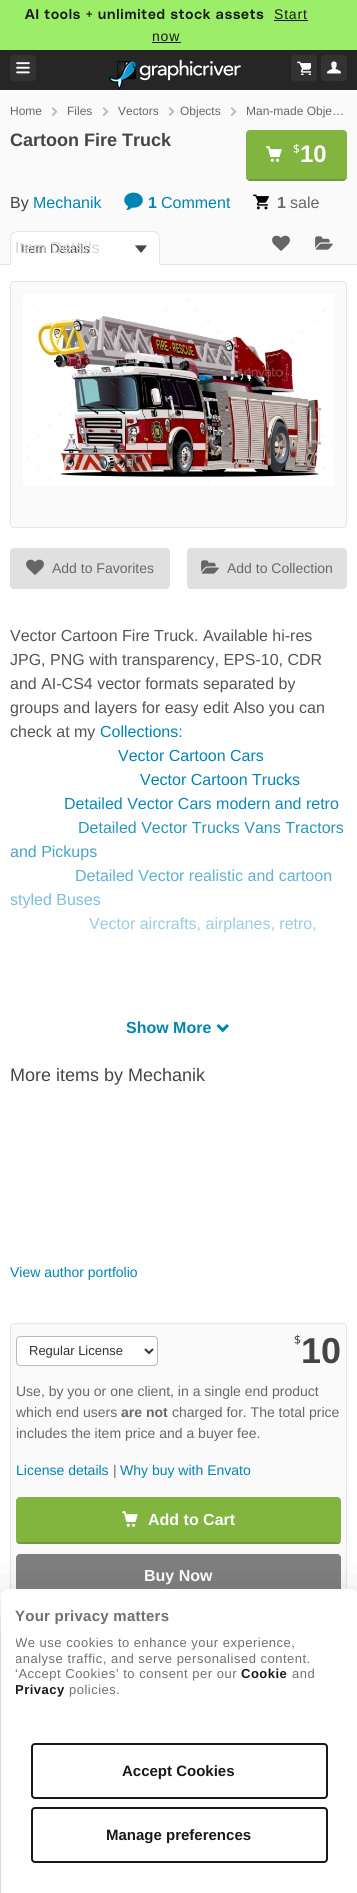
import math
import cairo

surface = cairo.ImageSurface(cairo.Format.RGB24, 357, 1893)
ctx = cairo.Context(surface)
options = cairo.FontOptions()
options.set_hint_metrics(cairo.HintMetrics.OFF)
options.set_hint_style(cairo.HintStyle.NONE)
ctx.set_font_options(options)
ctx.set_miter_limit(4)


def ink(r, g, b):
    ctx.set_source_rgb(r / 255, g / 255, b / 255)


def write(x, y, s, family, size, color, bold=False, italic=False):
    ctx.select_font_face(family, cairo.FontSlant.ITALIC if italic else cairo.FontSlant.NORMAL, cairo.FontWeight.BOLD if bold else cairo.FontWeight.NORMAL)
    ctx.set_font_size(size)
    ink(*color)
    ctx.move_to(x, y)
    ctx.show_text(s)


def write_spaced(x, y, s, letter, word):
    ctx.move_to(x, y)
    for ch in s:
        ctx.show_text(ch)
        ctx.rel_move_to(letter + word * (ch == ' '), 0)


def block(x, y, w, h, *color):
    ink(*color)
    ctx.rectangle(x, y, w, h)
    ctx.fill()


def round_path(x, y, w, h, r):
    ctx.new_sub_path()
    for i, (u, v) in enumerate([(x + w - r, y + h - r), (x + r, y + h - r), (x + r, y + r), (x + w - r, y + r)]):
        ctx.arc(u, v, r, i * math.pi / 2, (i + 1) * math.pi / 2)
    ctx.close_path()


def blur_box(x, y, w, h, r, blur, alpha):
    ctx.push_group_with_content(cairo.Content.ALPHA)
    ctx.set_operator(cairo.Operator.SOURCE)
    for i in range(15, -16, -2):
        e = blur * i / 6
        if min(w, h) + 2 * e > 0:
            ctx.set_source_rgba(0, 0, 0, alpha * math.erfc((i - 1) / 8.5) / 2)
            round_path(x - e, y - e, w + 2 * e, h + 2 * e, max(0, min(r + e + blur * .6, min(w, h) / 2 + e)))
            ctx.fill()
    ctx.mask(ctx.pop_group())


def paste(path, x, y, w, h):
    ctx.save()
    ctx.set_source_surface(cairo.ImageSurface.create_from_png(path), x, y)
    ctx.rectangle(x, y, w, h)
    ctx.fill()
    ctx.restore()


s1 = dict(family="Liberation Sans", size=12, color=(104, 104, 104))
s2 = dict(family="Liberation Sans", size=18, color=(69, 69, 69), bold=True)
s3 = dict(family="Noto Sans", size=12, color=(255, 255, 255))
s4 = dict(family="Liberation Sans", size=24, color=(255, 255, 255), bold=True)
s5 = dict(family="Liberation Sans", size=16, color=(69, 69, 69))
s6 = dict(family="Liberation Sans", size=16, color=(0, 132, 180))
s7 = dict(family="Liberation Sans", size=16, color=(0, 132, 180), bold=True)
s8 = dict(family="Liberation Sans", size=16, color=(104, 104, 104), bold=True)
s9 = dict(family="Liberation Sans", size=16, color=(104, 104, 104))
s10 = dict(family="Liberation Sans", size=13, color=(69, 69, 69))
s11 = dict(family="Liberation Sans", size=16, color=(211, 211, 211))
s12 = dict(family="Liberation Sans", size=14, color=(104, 104, 104))
s13 = dict(family="Liberation Sans", size=16, color=(84, 84, 84))
s14 = dict(family="Liberation Sans", size=18, color=(69, 69, 69))
s15 = dict(family="Liberation Sans", size=14, color=(0, 132, 180))
s16 = dict(family="Liberation Sans", size=13, color=(51, 51, 51))
s17 = dict(family="Noto Sans", size=12, color=(69, 69, 69))
s18 = dict(family="Liberation Sans", size=36, color=(69, 69, 69), bold=True)
s19 = dict(family="Liberation Sans", size=14, color=(104, 104, 104), bold=True)
s20 = dict(family="Liberation Sans", size=16, color=(255, 255, 255), bold=True)
s21 = dict(family="Liberation Sans", size=15, color=(25, 25, 25), bold=True)

ink(255, 255, 255)
ctx.paint()
block(0, 0, 357, 50, 156, 238, 105)
ctx.select_font_face("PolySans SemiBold")
ctx.set_font_size(14)
ink(25, 25, 25)
write_spaced(25, 19, "AI tools + unlimited stock assets", 0.8, 0)
ctx.select_font_face("Liberation Sans")
write_spaced(274, 19, "Start", 0.8, 0)
block(274, 20, 34, 1, 25, 25, 25)
write_spaced(152, 41, "now", 0.8, 0)
block(152, 42, 29, 1, 25, 25, 25)
block(0, 50, 357, 40, 38, 38, 38)
ink(51, 51, 51)
round_path(10, 55, 26, 26, 4)
ctx.fill()
paste("pic1.png", 16, 62, 14, 12)
paste("pic2.png", 109, 59, 132, 31)
round_path(291, 55, 26, 26, 4)
ctx.fill()
paste("pic3.png", 297, 61, 14, 14)
round_path(321, 55, 26, 26, 4)
ctx.fill()
paste("pic4.png", 327, 61, 14, 13)
block(0, 90, 357, 174, 250, 250, 250)
block(0, 264, 357, 1, 225, 232, 237)
write(10, 115, "Home", **s1)
paste("pic5.png", 51, 107, 7, 9)
write(67, 115, "Files", **s1)
paste("pic5.png", 102, 107, 7, 9)
write(118, 115, "Vectors", **s1)
paste("pic5.png", 168, 107, 7, 9)
write(180, 115, "Objects", **s1)
paste("pic5.png", 230, 107, 7, 9)
write(246, 115, "Man-made Obje…", **s1)
write(10, 146, "Cartoon Fire Truck", **s2)
ink(111, 154, 55)
ctx.new_path()
ctx.move_to(246, 175)
ctx.line_to(246, 177)
ctx.curve_to(246, 179, 248, 181, 250, 181)
ctx.line_to(343, 181)
ctx.curve_to(345, 181, 347, 179, 347, 177)
ctx.line_to(347, 175)
ctx.curve_to(347, 177, 345, 179, 343, 179)
ctx.line_to(250, 179)
ctx.curve_to(248, 179, 246, 177, 246, 175)
ctx.close_path()
ctx.fill()
ink(130, 180, 64)
round_path(246, 130, 101, 49, 4)
ctx.fill()
paste("pic6.png", 266, 146, 16, 16)
write(293, 153, "$", **s3)
write(300, 162, "10", **s4)
write(10, 208, "By", **s5)
write(33, 208, "Mechanik", **s6)
paste("pic7.png", 124, 192, 19, 18)
write(148, 208, "1", **s7)
write(161, 208, "Comment", **s6)
paste("pic8.png", 253, 194, 16, 16)
write(277, 208, "1", **s8)
write(290, 208, "sale", **s9)
ink(255, 255, 255)
ctx.new_path()
ctx.move_to(17, 231)
ctx.line_to(153, 231)
ctx.curve_to(157, 231, 160, 234, 160, 238)
ctx.line_to(160, 265)
ctx.line_to(10, 265)
ctx.line_to(10, 238)
ctx.curve_to(10, 234, 13, 231, 17, 231)
ctx.close_path()
ctx.fill()
paste("pic9.png", 135, 245, 12, 8)
ctx.new_path()
ctx.move_to(147, 245.5)
ctx.line_to(151, 249.5)
ctx.line_to(155, 245.5)
ctx.stroke()
write(21, 253, "Item Details", **s10)
write(15, 253, "Item Details", **s11)
ink(225, 232, 237)
ctx.new_path()
ctx.move_to(17, 231)
ctx.curve_to(15, 231, 13, 232, 12, 233)
ctx.line_to(13, 234)
ctx.line_to(16, 232)
ctx.line_to(154, 232)
ctx.line_to(157, 234)
ctx.line_to(158, 233)
ctx.curve_to(157, 232, 155, 231, 153, 231)
ctx.close_path()
ctx.fill()
ctx.new_path()
ctx.move_to(160, 265)
ctx.line_to(160, 238)
ctx.curve_to(160, 236, 159, 234, 158, 233)
ctx.line_to(157, 234)
ctx.curve_to(158, 235, 159, 236.5, 159, 238)
ctx.line_to(159, 264)
ctx.close_path()
ctx.fill()
ink(255, 255, 255)
ctx.new_path()
ctx.move_to(160, 265)
ctx.line_to(159, 264)
ctx.line_to(11, 264)
ctx.line_to(10, 265)
ctx.close_path()
ctx.fill()
ink(225, 232, 237)
ctx.new_path()
ctx.move_to(10, 265)
ctx.line_to(11, 264)
ctx.line_to(11, 238)
ctx.curve_to(11, 236.5, 12, 235, 13, 234)
ctx.line_to(12, 233)
ctx.curve_to(11, 234, 10, 236, 10, 238)
ctx.close_path()
ctx.fill()
paste("pic10.png", 272, 235, 18, 16)
paste("pic11.png", 315, 236, 18, 14)
ink(250, 250, 250)
round_path(10.5, 281.5, 336, 246, 3.5)
ctx.fill_preserve()
ink(225, 232, 237)
ctx.set_line_width(1)
ctx.stroke()
paste("pic12.png", 23, 294, 311, 192)
ink(224, 224, 224)
round_path(10, 548, 160, 41, 4)
ctx.fill()
paste("pic13.png", 26, 559, 18, 16)
write(52, 573, "Add to Favorites", **s12)
ink(224, 224, 224)
round_path(187, 548, 160, 41, 4)
ctx.fill()
paste("pic14.png", 201, 560, 18, 14)
write(227, 573, "Add to Collection", **s12)
write(10, 641, "Vector Cartoon Fire Truck. Available hi-res", **s13)
write(10, 665, "JPG, PNG with transparency, EPS-10, CDR", **s13)
write(10, 689, "and AI-CS4 vector formats separated by", **s13)
write(10, 713, "groups and layers for easy edit Also you can", **s13)
write(10, 737, "check at my", **s13)
write(100, 737, "Collections:", **s6)
write(118, 761, "Vector Cartoon Cars", **s6)
write(140, 785, "Vector Cartoon Trucks", **s6)
write(64, 809, "Detailed Vector Cars modern and retro", **s6)
write(78, 833, "Detailed Vector Trucks Vans Tractors", **s6)
write(10, 857, "and Pickups", **s6)
write(75, 881, "Detailed Vector realistic and cartoon", **s6)
write(10, 905, "styled Buses", **s6)
write(89, 929, "Vector aircrafts, airplanes, retro,", **s6)
gradient = cairo.LinearGradient(178, 574, 179, 1014)
gradient.add_color_stop_rgba(0.5, 1, 1, 1, 0)
gradient.add_color_stop_rgba(1, 1, 1, 1, 1)
ctx.set_source(gradient)
ctx.rectangle(10, 798, 334, 135)
ctx.fill()
write(126, 1033, "Show More", **s7)
paste("pic15.png", 216, 1024, 13, 9)
write(10, 1081, "More items by Mechanik", **s14)
write(10, 1277, "View author portfolio", **s15)
ink(250, 250, 250)
round_path(10.5, 1323.5, 336, 312, 3.5)
ctx.fill_preserve()
ink(225, 232, 237)
ctx.stroke()
ink(255, 255, 255)
round_path(16.5, 1336.5, 141, 29, 3.5)
ctx.fill_preserve()
ink(186, 186, 186)
ctx.stroke()
ctx.new_path()
ctx.move_to(145, 1349)
ctx.line_to(149, 1353)
ctx.line_to(153, 1349)
ink(51, 51, 51)
ctx.set_line_width(2)
ctx.stroke()
write(29, 1355, "Regular License", **s16)
write(294, 1344, "$", **s17)
write(301, 1363, "10", **s18)
write(16, 1396, "Use, by you or one client, in a single end product", **s12)
write(16, 1417, "which end users", **s12)
write(121, 1417, "are not", **s19)
write(172, 1417, "charged for. The total price", **s12)
write(16, 1438, "includes the item price and a buyer fee.", **s12)
write(16, 1475, "License details", **s15)
write(113, 1475, "|", **s12)
write(120, 1475, "Why buy with Envato", **s15)
ink(111, 154, 55)
ctx.new_path()
ctx.move_to(16, 1538)
ctx.curve_to(16, 1541, 16, 1544, 20, 1544)
ctx.line_to(337, 1544)
ctx.curve_to(341, 1544, 341, 1541, 341, 1538)
ctx.curve_to(341, 1540, 339, 1542, 337, 1542)
ctx.line_to(20, 1542)
ctx.curve_to(18, 1542, 16, 1540, 16, 1538)
ctx.close_path()
ctx.fill()
ink(130, 180, 64)
round_path(16, 1497, 325, 45, 4)
ctx.fill()
paste("pic6.png", 122, 1511, 16, 16)
write(148, 1525, "Add to Cart", **s20)
ink(128, 128, 128)
round_path(16, 1554, 325, 44, 4)
ctx.fill()
write(144, 1581, "Buy Now", **s20)
ink(0, 0, 0)
blur_box(1, 1621, 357, 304, 8, 34, 0.3)
ink(255, 255, 255)
ctx.new_path()
ctx.move_to(9, 1589)
ctx.line_to(350, 1589)
ctx.curve_to(354.5, 1589, 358, 1592.5, 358, 1597)
ctx.line_to(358, 1893)
ctx.line_to(1, 1893)
ctx.line_to(1, 1597)
ctx.curve_to(1, 1592.5, 4.5, 1589, 9, 1589)
ctx.close_path()
ctx.fill()
ctx.set_font_size(15)
ink(112, 112, 112)
write_spaced(15, 1621, "Your privacy matters", 0.25, 0)
ctx.save()
ctx.rectangle(16, 1604, 327, 94)
ctx.clip()
ctx.select_font_face("Liberation Sans")
ctx.set_font_size(13)
write_spaced(15, 1647, "We use cookies to enhance your experience,", 0.5, 0)
write_spaced(15, 1663, "analyse traffic, and serve personalised content.", 0.5, 0)
ctx.restore()
ctx.select_font_face("Liberation Sans")
ctx.set_font_size(13)
write_spaced(15, 1678, "‘Accept Cookies’ to consent per our", 0.5, 0)
ctx.select_font_face("Liberation Sans", cairo.FontSlant.NORMAL, cairo.FontWeight.BOLD)
ink(25, 25, 25)
write_spaced(241, 1678, "Cookie", 0.5, 0)
ctx.select_font_face("Liberation Sans")
ink(112, 112, 112)
write_spaced(292, 1678, "and", 0.5, 0)
ctx.save()
ctx.rectangle(16, 1604, 327, 94)
ctx.clip()
ctx.select_font_face("Liberation Sans", cairo.FontSlant.NORMAL, cairo.FontWeight.BOLD)
ink(25, 25, 25)
write_spaced(15, 1694, "Privacy", 0.5, 0)
ctx.restore()
write_spaced(69, 1694, "policies.", 0.5, 0)
round_path(32, 1744, 295, 54, 3)
ink(25, 25, 25)
ctx.stroke()
write(122, 1776, "Accept Cookies", **s21)
round_path(32, 1808, 295, 54, 3)
ctx.stroke()
write(106, 1840, "Manage preferences", **s21)
surface.write_to_png("screenshot.png")
